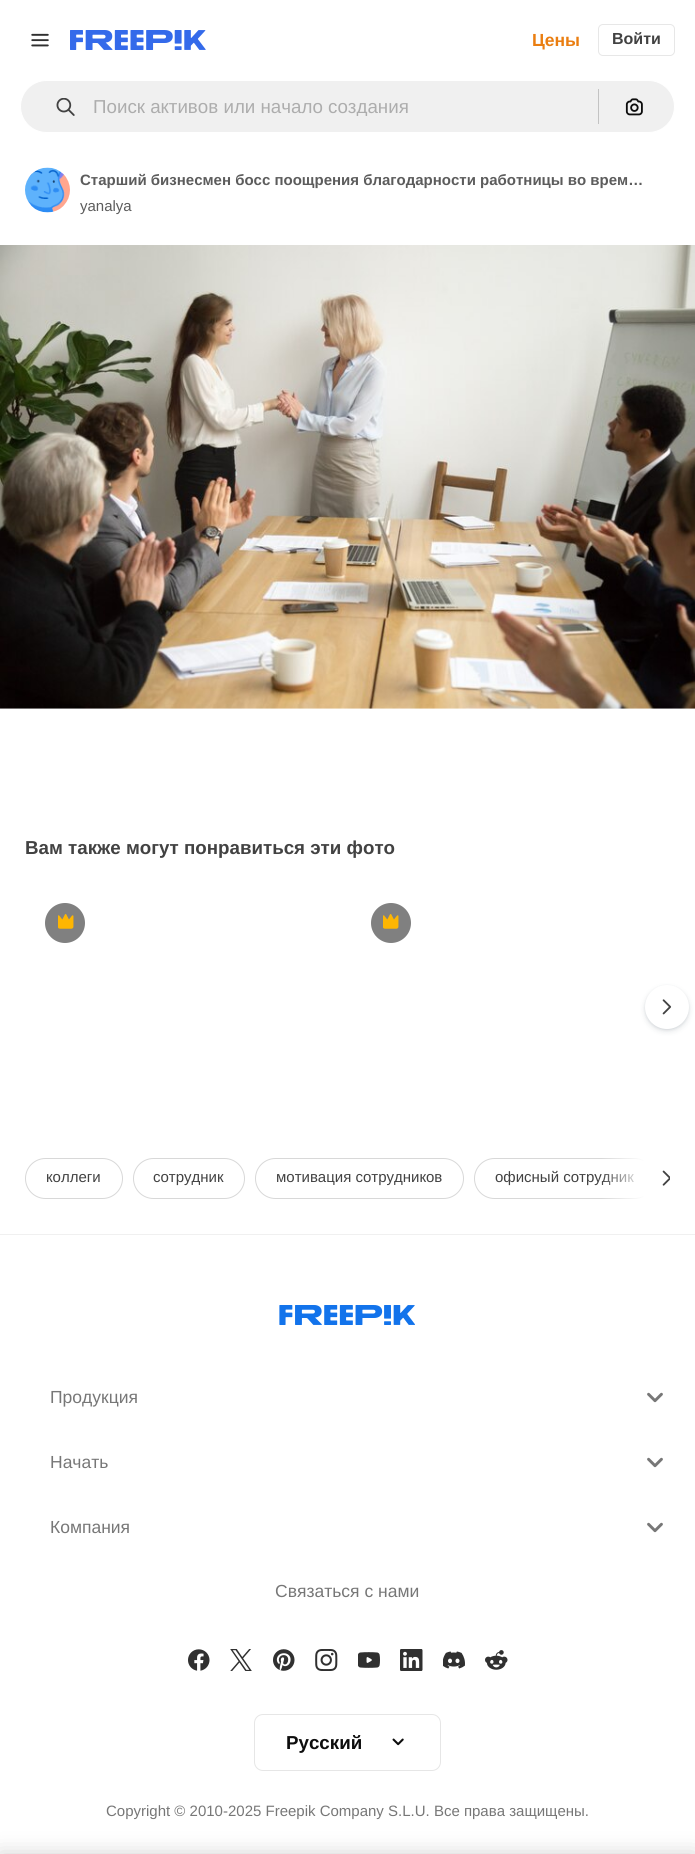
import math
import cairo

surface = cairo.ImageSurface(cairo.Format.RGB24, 695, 1854)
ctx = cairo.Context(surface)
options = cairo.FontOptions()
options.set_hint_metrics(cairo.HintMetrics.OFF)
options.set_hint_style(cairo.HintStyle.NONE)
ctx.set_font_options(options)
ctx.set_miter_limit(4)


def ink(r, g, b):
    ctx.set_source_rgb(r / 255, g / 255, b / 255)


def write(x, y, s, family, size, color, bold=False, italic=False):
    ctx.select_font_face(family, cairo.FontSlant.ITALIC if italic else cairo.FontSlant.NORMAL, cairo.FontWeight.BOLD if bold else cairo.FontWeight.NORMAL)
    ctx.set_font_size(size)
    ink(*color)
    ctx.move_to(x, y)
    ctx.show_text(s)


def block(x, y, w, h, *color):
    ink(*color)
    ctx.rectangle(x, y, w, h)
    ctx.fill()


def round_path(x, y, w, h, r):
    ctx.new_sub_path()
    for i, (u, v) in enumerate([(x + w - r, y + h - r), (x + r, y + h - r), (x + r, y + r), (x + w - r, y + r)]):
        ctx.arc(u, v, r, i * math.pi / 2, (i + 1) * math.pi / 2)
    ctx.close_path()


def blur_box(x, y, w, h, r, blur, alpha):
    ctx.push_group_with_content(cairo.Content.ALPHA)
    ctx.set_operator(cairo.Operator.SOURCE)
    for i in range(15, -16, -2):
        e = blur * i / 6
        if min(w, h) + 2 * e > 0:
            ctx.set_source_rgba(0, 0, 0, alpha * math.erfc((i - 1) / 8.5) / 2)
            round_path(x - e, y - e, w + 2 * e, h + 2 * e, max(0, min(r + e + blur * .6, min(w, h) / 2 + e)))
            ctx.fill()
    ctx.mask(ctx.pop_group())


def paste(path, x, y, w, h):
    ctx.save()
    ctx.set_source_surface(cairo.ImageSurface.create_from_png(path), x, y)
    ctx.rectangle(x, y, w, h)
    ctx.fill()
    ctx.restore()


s1 = dict(family="Liberation Sans", size=17.5, color=(234, 126, 17), bold=True)
s2 = dict(family="Liberation Sans", size=16, color=(66, 66, 66), bold=True)
s3 = dict(family="Liberation Sans", size=18.75, color=(173, 173, 173))
s4 = dict(family="Liberation Sans", size=15, color=(92, 92, 92), bold=True)
s5 = dict(family="Liberation Sans", size=15, color=(92, 92, 92))
s6 = dict(family="Liberation Sans", size=18.75, color=(66, 66, 66), bold=True)
s7 = dict(family="Liberation Sans", size=15, color=(66, 66, 66))
s8 = dict(family="Liberation Sans", size=17.5, color=(119, 119, 119))
s9 = dict(family="Liberation Sans", size=18.75, color=(13, 13, 13), bold=True)
s10 = dict(family="Liberation Sans", size=15, color=(119, 119, 119))

ink(255, 255, 255)
ctx.paint()
paste("pic1.png", 31, 33, 18, 14)
paste("pic2.png", 70, 30, 136, 20)
write(532, 46, "Цены", **s1)
round_path(598.5, 24.5, 76, 31, 4.5)
ink(231, 231, 231)
ctx.set_line_width(1)
ctx.stroke()
write(612, 44, "Войти", **s2)
ink(240, 240, 240)
round_path(20.5, 80.5, 654, 52, 26)
ctx.fill_preserve()
ink(255, 255, 255)
ctx.stroke()
paste("pic3.png", 56, 98, 19, 18)
ctx.save()
ctx.rectangle(93, 95, 497, 21)
ctx.clip()
write(93, 113, "Поиск активов или начало создания", **s3)
ctx.restore()
block(598, 89, 1, 35, 195, 195, 195)
paste("pic4.png", 625, 98, 18, 18)
paste("pic5.png", 25, 167, 45, 46)
write(80, 185, "Старший бизнесмен босс поощрения благодарности работницы во врем…", **s4)
write(80, 211, "yanalya", **s5)
paste("pic6.png", 0, 245, 695, 464)
write(25, 854, "Вам также могут понравиться эти фото", **s6)
ink(128, 128, 128)
ctx.new_path()
ctx.arc(65, 923, 20, 0, 2 * math.pi)
ctx.fill()
paste("pic7.png", 58, 914, 16, 15)
ctx.arc(391, 923, 20, 0, 2 * math.pi)
ctx.fill()
paste("pic7.png", 383, 914, 16, 15)
ink(55, 73, 87)
blur_box(645, 988, 44, 43, 21.5, 3, 0.15)
blur_box(645, 986, 44, 44, 22, 1, 0.1)
ink(255, 255, 255)
ctx.arc(667, 1007, 22, 0, 2 * math.pi)
ctx.fill()
paste("pic8.png", 662, 999, 10, 16)
round_path(25.5, 1158.5, 97, 40, 20)
ink(216, 216, 216)
ctx.stroke()
write(46, 1182, "коллеги", **s7)
round_path(133.5, 1158.5, 111, 40, 20)
ink(216, 216, 216)
ctx.stroke()
write(153, 1182, "сотрудник", **s7)
round_path(255.5, 1158.5, 208, 40, 20)
ink(216, 216, 216)
ctx.stroke()
write(276, 1182, "мотивация сотрудников", **s7)
round_path(474.5, 1158.5, 180, 40, 20)
ink(216, 216, 216)
ctx.stroke()
write(495, 1182, "офисный сотрудник", **s7)
block(645, 1161, 10, 35, 255, 255, 255)
gradient = cairo.LinearGradient(645, 1178, 601, 1178)
gradient.add_color_stop_rgba(0, 1, 1, 1, 1)
gradient.add_color_stop_rgba(1, 1, 1, 1, 0)
ctx.set_source(gradient)
ctx.rectangle(602, 1158, 43, 41)
ctx.fill()
paste("pic9.png", 662, 1170, 8, 16)
block(0, 1234, 695, 1, 240, 240, 240)
paste("pic10.png", 279, 1305, 136, 20)
write(50, 1403, "Продукция", **s8)
paste("pic11.png", 647, 1392, 16, 11)
write(50, 1468, "Начать", **s8)
paste("pic11.png", 647, 1457, 16, 11)
write(50, 1533, "Компания", **s8)
paste("pic11.png", 647, 1522, 16, 11)
write(275, 1597, "Связаться с нами", **s8)
paste("pic12.png", 188, 1649, 22, 22)
paste("pic13.png", 230, 1649, 22, 22)
paste("pic14.png", 273, 1649, 22, 22)
paste("pic15.png", 315, 1649, 23, 22)
paste("pic16.png", 358, 1652, 22, 16)
paste("pic17.png", 400, 1649, 23, 22)
paste("pic18.png", 443, 1651, 22, 18)
paste("pic19.png", 485, 1650, 23, 20)
round_path(254.5, 1714.5, 186, 56, 8.5)
ink(230, 230, 230)
ctx.stroke()
write(286, 1749, "Pусский", **s9)
paste("pic20.png", 392, 1738, 12, 8)
write(106, 1816, "Copyright © 2010-2025 Freepik Company S.L.U. Все права защищены.", **s10)
ink(0, 0, 0)
blur_box(0, 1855, 695, 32, 0, 11, 0.2)
surface.write_to_png("screenshot.png")
